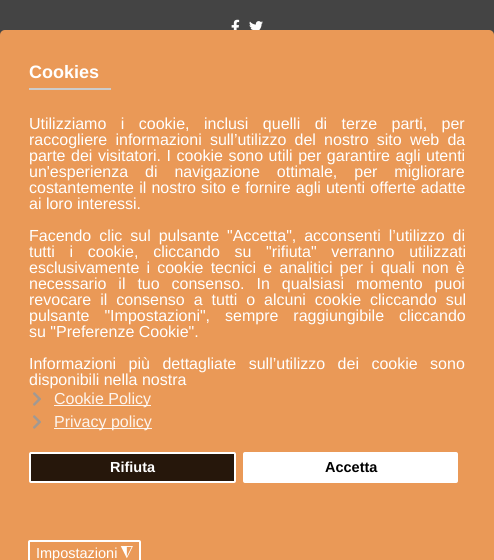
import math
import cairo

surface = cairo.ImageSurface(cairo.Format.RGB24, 494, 560)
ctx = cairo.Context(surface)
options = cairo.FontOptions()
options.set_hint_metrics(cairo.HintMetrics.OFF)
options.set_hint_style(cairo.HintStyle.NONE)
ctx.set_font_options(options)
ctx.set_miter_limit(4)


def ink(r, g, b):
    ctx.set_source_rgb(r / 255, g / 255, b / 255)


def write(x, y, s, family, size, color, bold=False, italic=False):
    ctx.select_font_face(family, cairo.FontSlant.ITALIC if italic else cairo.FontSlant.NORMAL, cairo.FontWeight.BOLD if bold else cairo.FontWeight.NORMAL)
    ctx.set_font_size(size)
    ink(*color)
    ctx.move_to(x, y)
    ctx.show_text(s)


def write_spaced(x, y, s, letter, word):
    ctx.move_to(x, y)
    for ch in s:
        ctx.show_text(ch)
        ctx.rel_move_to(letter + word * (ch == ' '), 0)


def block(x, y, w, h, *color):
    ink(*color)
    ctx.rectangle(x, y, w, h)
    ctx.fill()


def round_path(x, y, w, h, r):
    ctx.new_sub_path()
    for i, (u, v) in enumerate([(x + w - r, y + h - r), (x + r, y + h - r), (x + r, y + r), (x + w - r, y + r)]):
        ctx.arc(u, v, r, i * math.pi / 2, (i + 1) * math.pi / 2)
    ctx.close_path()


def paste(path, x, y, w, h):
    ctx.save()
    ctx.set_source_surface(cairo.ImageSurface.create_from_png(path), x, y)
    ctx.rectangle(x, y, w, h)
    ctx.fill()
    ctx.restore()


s1 = dict(family="Liberation Sans", size=18, color=(255, 255, 255), bold=True)
s2 = dict(family="Liberation Sans", size=16, color=(255, 255, 255))
s3 = dict(family="Liberation Sans", size=16, color=(253, 245, 238))
s4 = dict(family="Liberation Sans", size=14.5, color=(255, 255, 255))
s5 = dict(family="DejaVu Sans", size=16, color=(255, 255, 255))
s6 = dict(family="Liberation Sans", size=14.5, color=(255, 255, 255), bold=True)
s7 = dict(family="Liberation Sans", size=14.5, color=(0, 0, 0), bold=True)

ink(68, 68, 68)
ctx.paint()
paste("pic1.png", 231, 19, 9, 11)
paste("pic2.png", 249, 21, 14, 9)
ink(234, 153, 87)
round_path(0, 30, 494, 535, 5)
ctx.fill()
write(29, 78, "Cookies", **s1)
block(29, 88, 82, 2, 204, 204, 204)
ctx.select_font_face("Liberation Sans")
ctx.set_font_size(16)
ink(255, 255, 255)
write_spaced(29, 129, "Utilizziamo i cookie, inclusi quelli di terze parti, per", 0, 10)
write_spaced(29, 145, "raccogliere informazioni sull’utilizzo del nostro sito web da", 0, 3.75)
write_spaced(29, 161, "parte dei visitatori. I cookie sono utili per garantire agli utenti", 0, 1.1)
write_spaced(29, 177, "un'esperienza di navigazione ottimale, per migliorare", 0, 12.5)
write_spaced(29, 193, "costantemente il nostro sito e fornire agli utenti offerte adatte", 0, 0.75)
write(29, 209, "ai loro interessi.", **s2)
write_spaced(29, 241, "Facendo clic sul pulsante \"Accetta\", acconsenti l’utilizzo di", 0, 3.5)
write_spaced(29, 257, "tutti i cookie, cliccando su \"rifiuta\" verranno utilizzati", 0, 10.25)
write_spaced(29, 273, "esclusivamente i cookie tecnici e analitici per i quali non è", 0, 2.75)
write_spaced(29, 289, "necessario il tuo consenso. In qualsiasi momento puoi", 0, 7.5)
write_spaced(29, 305, "revocare il consenso a tutti o alcuni cookie cliccando sul", 0, 4.5)
write_spaced(29, 321, "pulsante \"Impostazioni\", sempre raggiungibile cliccando", 0, 10.5)
write(29, 337, "su \"Preferenze Cookie\".", **s2)
write_spaced(29, 369, "Informazioni più dettagliate sull’utilizzo dei cookie sono", 0, 8)
write(29, 385, "disponibili nella nostra", **s2)
paste("pic3.png", 33, 392, 8, 14)
block(54, 405, 97, 1, 253, 245, 238)
write(54, 404, "Cookie Policy", **s3)
paste("pic3.png", 33, 415, 8, 14)
block(54, 428, 98, 1, 253, 245, 238)
write(54, 427, "Privacy policy", **s3)
round_path(29, 541, 111, 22, 1)
ink(255, 255, 255)
ctx.stroke()
write(36, 558, "Impostazioni", **s4)
ctx.save()
ctx.translate(133, 548)
ctx.rotate(180 * math.pi / 180)
write(0, 0, "◮", **s5)
ctx.restore()
ink(38, 23, 11)
round_path(30, 453, 205, 29, 1)
ctx.fill_preserve()
ink(255, 255, 255)
ctx.stroke()
write(110, 472, "Rifiuta", **s6)
round_path(244, 453, 213, 29, 1)
ctx.fill_preserve()
ctx.stroke()
write(325, 472, "Accetta", **s7)
surface.write_to_png("screenshot.png")
